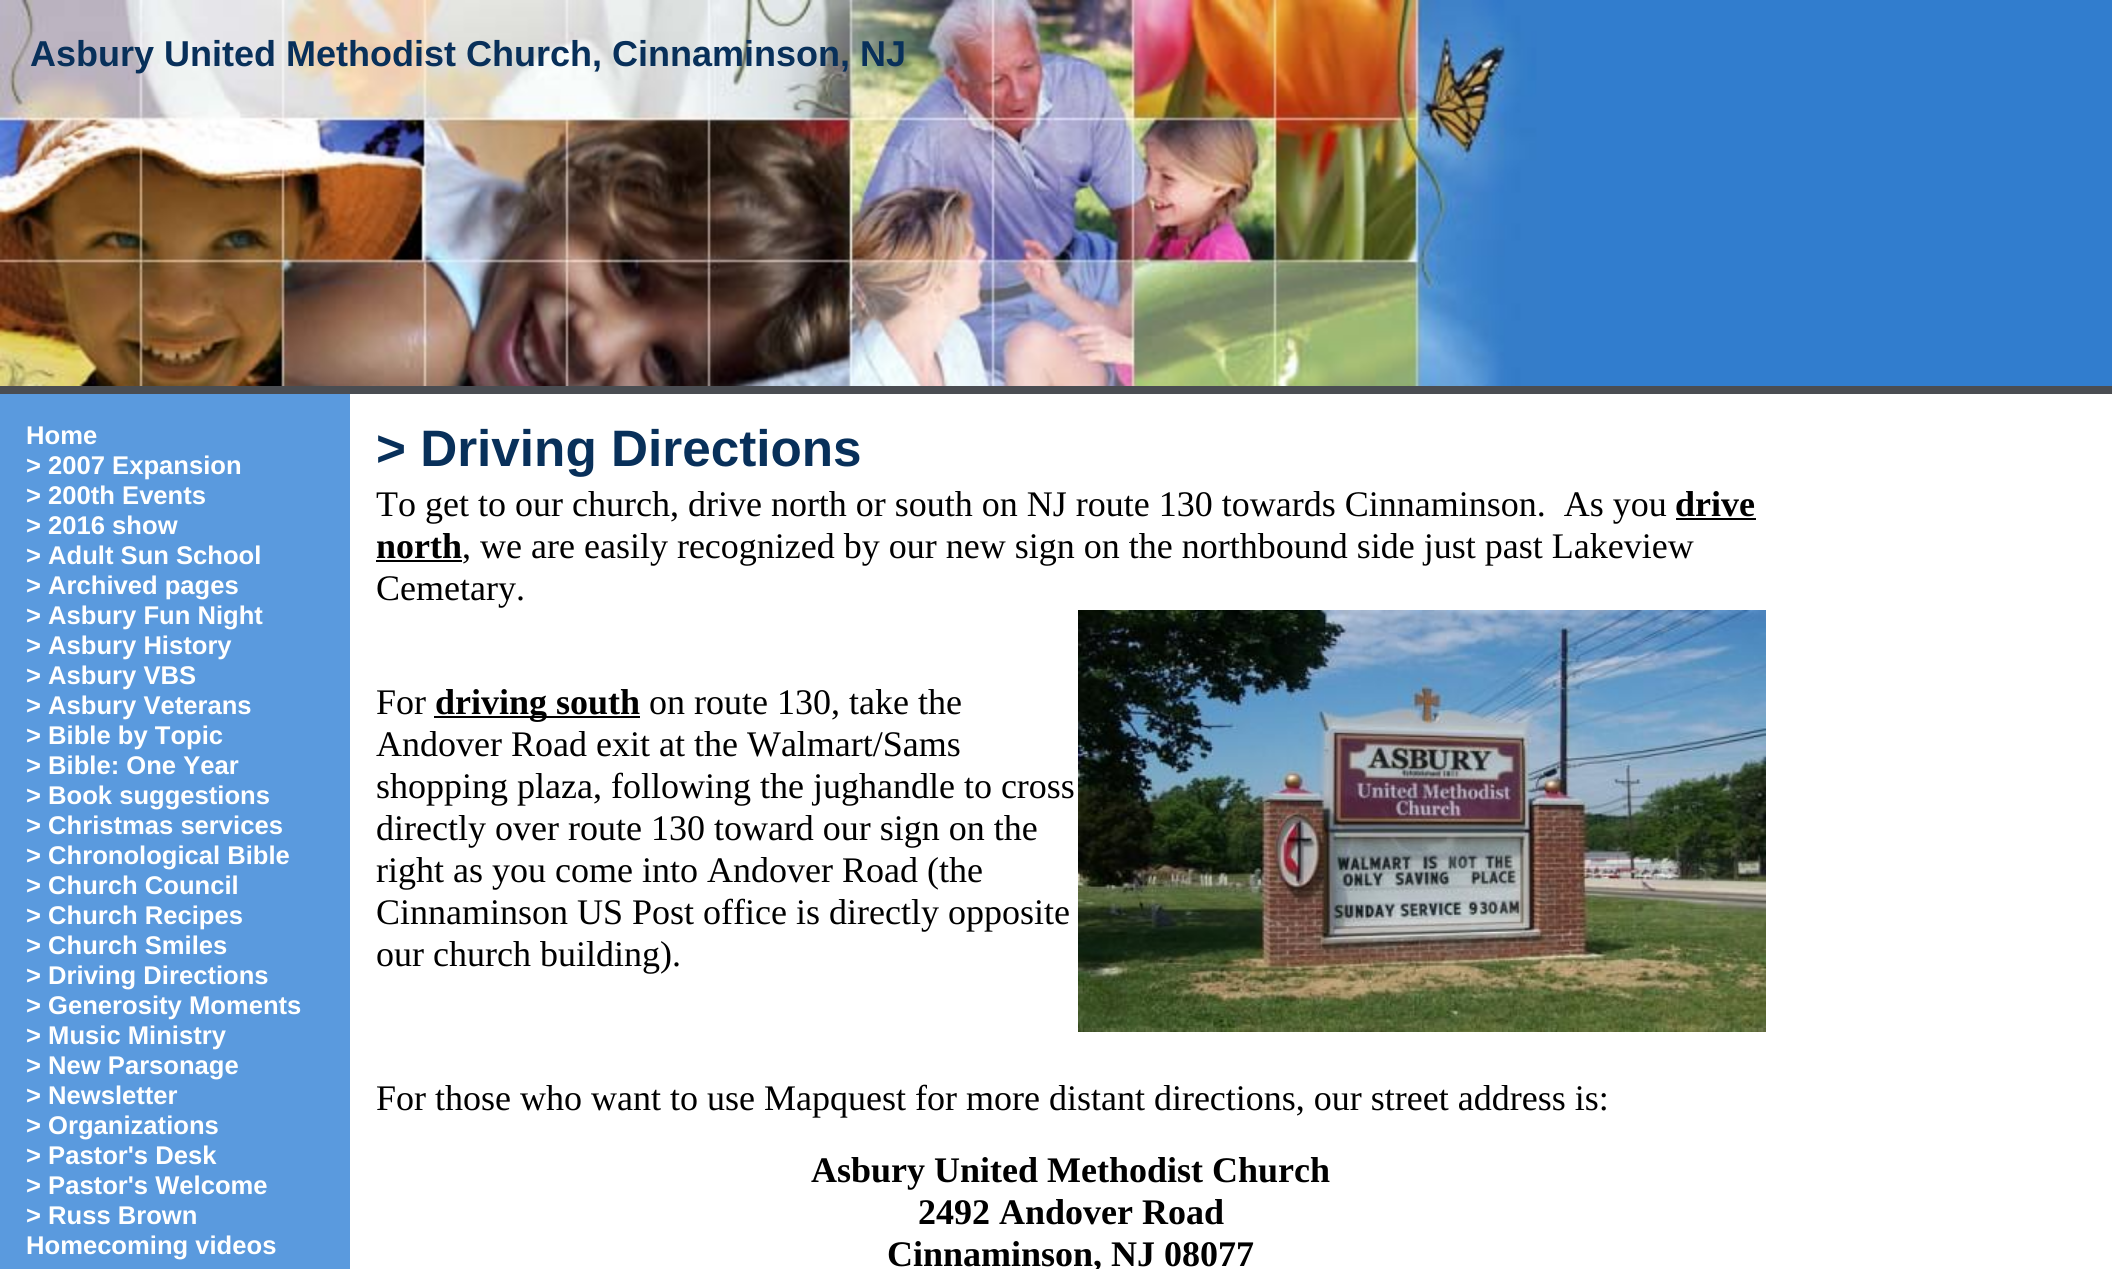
import math
import cairo

surface = cairo.ImageSurface(cairo.Format.RGB24, 2112, 1269)
ctx = cairo.Context(surface)
options = cairo.FontOptions()
options.set_hint_metrics(cairo.HintMetrics.OFF)
options.set_hint_style(cairo.HintStyle.NONE)
ctx.set_font_options(options)
ctx.set_miter_limit(4)


def ink(r, g, b):
    ctx.set_source_rgb(r / 255, g / 255, b / 255)


def write(x, y, s, family, size, color, bold=False, italic=False):
    ctx.select_font_face(family, cairo.FontSlant.ITALIC if italic else cairo.FontSlant.NORMAL, cairo.FontWeight.BOLD if bold else cairo.FontWeight.NORMAL)
    ctx.set_font_size(size)
    ink(*color)
    ctx.move_to(x, y)
    ctx.show_text(s)


def block(x, y, w, h, *color):
    ink(*color)
    ctx.rectangle(x, y, w, h)
    ctx.fill()


def paste(path, x, y, w, h):
    ctx.save()
    ctx.set_source_surface(cairo.ImageSurface.create_from_png(path), x, y)
    ctx.rectangle(x, y, w, h)
    ctx.fill()
    ctx.restore()


s1 = dict(family="Liberation Sans", size=36, color=(8, 48, 90), bold=True)
s2 = dict(family="Liberation Sans", size=25.6, color=(255, 255, 255), bold=True)
s3 = dict(family="Liberation Sans", size=51.25, color=(8, 48, 90), bold=True)
s4 = dict(family="Liberation Serif", size=36, color=(0, 0, 0))
s5 = dict(family="Liberation Serif", size=36, color=(0, 0, 0), bold=True)

ink(255, 255, 255)
ctx.paint()
block(1550, 0, 562, 386, 49, 125, 206)
paste("pic1.png", 0, 0, 1550, 386)
block(0, 386, 2112, 8, 74, 77, 82)
write(30, 66, "Asbury United Methodist Church, Cinnaminson, NJ", **s1)
block(0, 394, 350, 875, 90, 154, 222)
write(26, 444, "Home", **s2)
write(26, 474, "> 2007 Expansion", **s2)
write(26, 504, "> 200th Events", **s2)
write(26, 534, "> 2016 show", **s2)
write(26, 564, "> Adult Sun School", **s2)
write(26, 594, "> Archived pages", **s2)
write(26, 624, "> Asbury Fun Night", **s2)
write(26, 654, "> Asbury History", **s2)
write(26, 684, "> Asbury VBS", **s2)
write(26, 714, "> Asbury Veterans", **s2)
write(26, 744, "> Bible by Topic", **s2)
write(26, 774, "> Bible: One Year", **s2)
write(26, 804, "> Book suggestions", **s2)
write(26, 834, "> Christmas services", **s2)
write(26, 864, "> Chronological Bible", **s2)
write(26, 894, "> Church Council", **s2)
write(26, 924, "> Church Recipes", **s2)
write(26, 954, "> Church Smiles", **s2)
write(26, 984, "> Driving Directions", **s2)
write(26, 1014, "> Generosity Moments", **s2)
write(26, 1044, "> Music Ministry", **s2)
write(26, 1074, "> New Parsonage", **s2)
write(26, 1104, "> Newsletter", **s2)
write(26, 1134, "> Organizations", **s2)
write(26, 1164, "> Pastor's Desk", **s2)
write(26, 1194, "> Pastor's Welcome", **s2)
write(26, 1224, "> Russ Brown", **s2)
write(26, 1254, "Homecoming videos", **s2)
write(376, 466, "> Driving Directions", **s3)
write(376, 516, "To get to our church, drive north or south on NJ route 130 towards Cinnaminson.  As you", **s4)
write(1675, 516, "drive", **s5)
block(1676, 518, 80, 2, 0, 0, 0)
write(376, 558, "north", **s5)
block(376, 560, 86, 2, 0, 0, 0)
write(462, 558, ", we are easily recognized by our new sign on the northbound side just past Lakeview", **s4)
write(376, 600, "Cemetary.", **s4)
paste("pic2.png", 1078, 610, 688, 422)
write(376, 714, "For", **s4)
block(434, 716, 206, 2, 0, 0, 0)
write(435, 714, "driving south", **s5)
write(649, 714, "on route 130, take the", **s4)
write(376, 756, "Andover Road exit at the Walmart/Sams", **s4)
write(376, 798, "shopping plaza, following the jughandle to cross", **s4)
write(376, 840, "directly over route 130 toward our sign on the", **s4)
write(376, 882, "right as you come into Andover Road (the", **s4)
write(376, 924, "Cinnaminson US Post office is directly opposite", **s4)
write(376, 966, "our church building).", **s4)
write(376, 1110, "For those who want to use Mapquest for more distant directions, our street address is:", **s4)
write(811, 1182, "Asbury United Methodist Church", **s5)
write(918, 1224, "2492 Andover Road", **s5)
write(887, 1266, "Cinnaminson, NJ 08077", **s5)
surface.write_to_png("screenshot.png")
